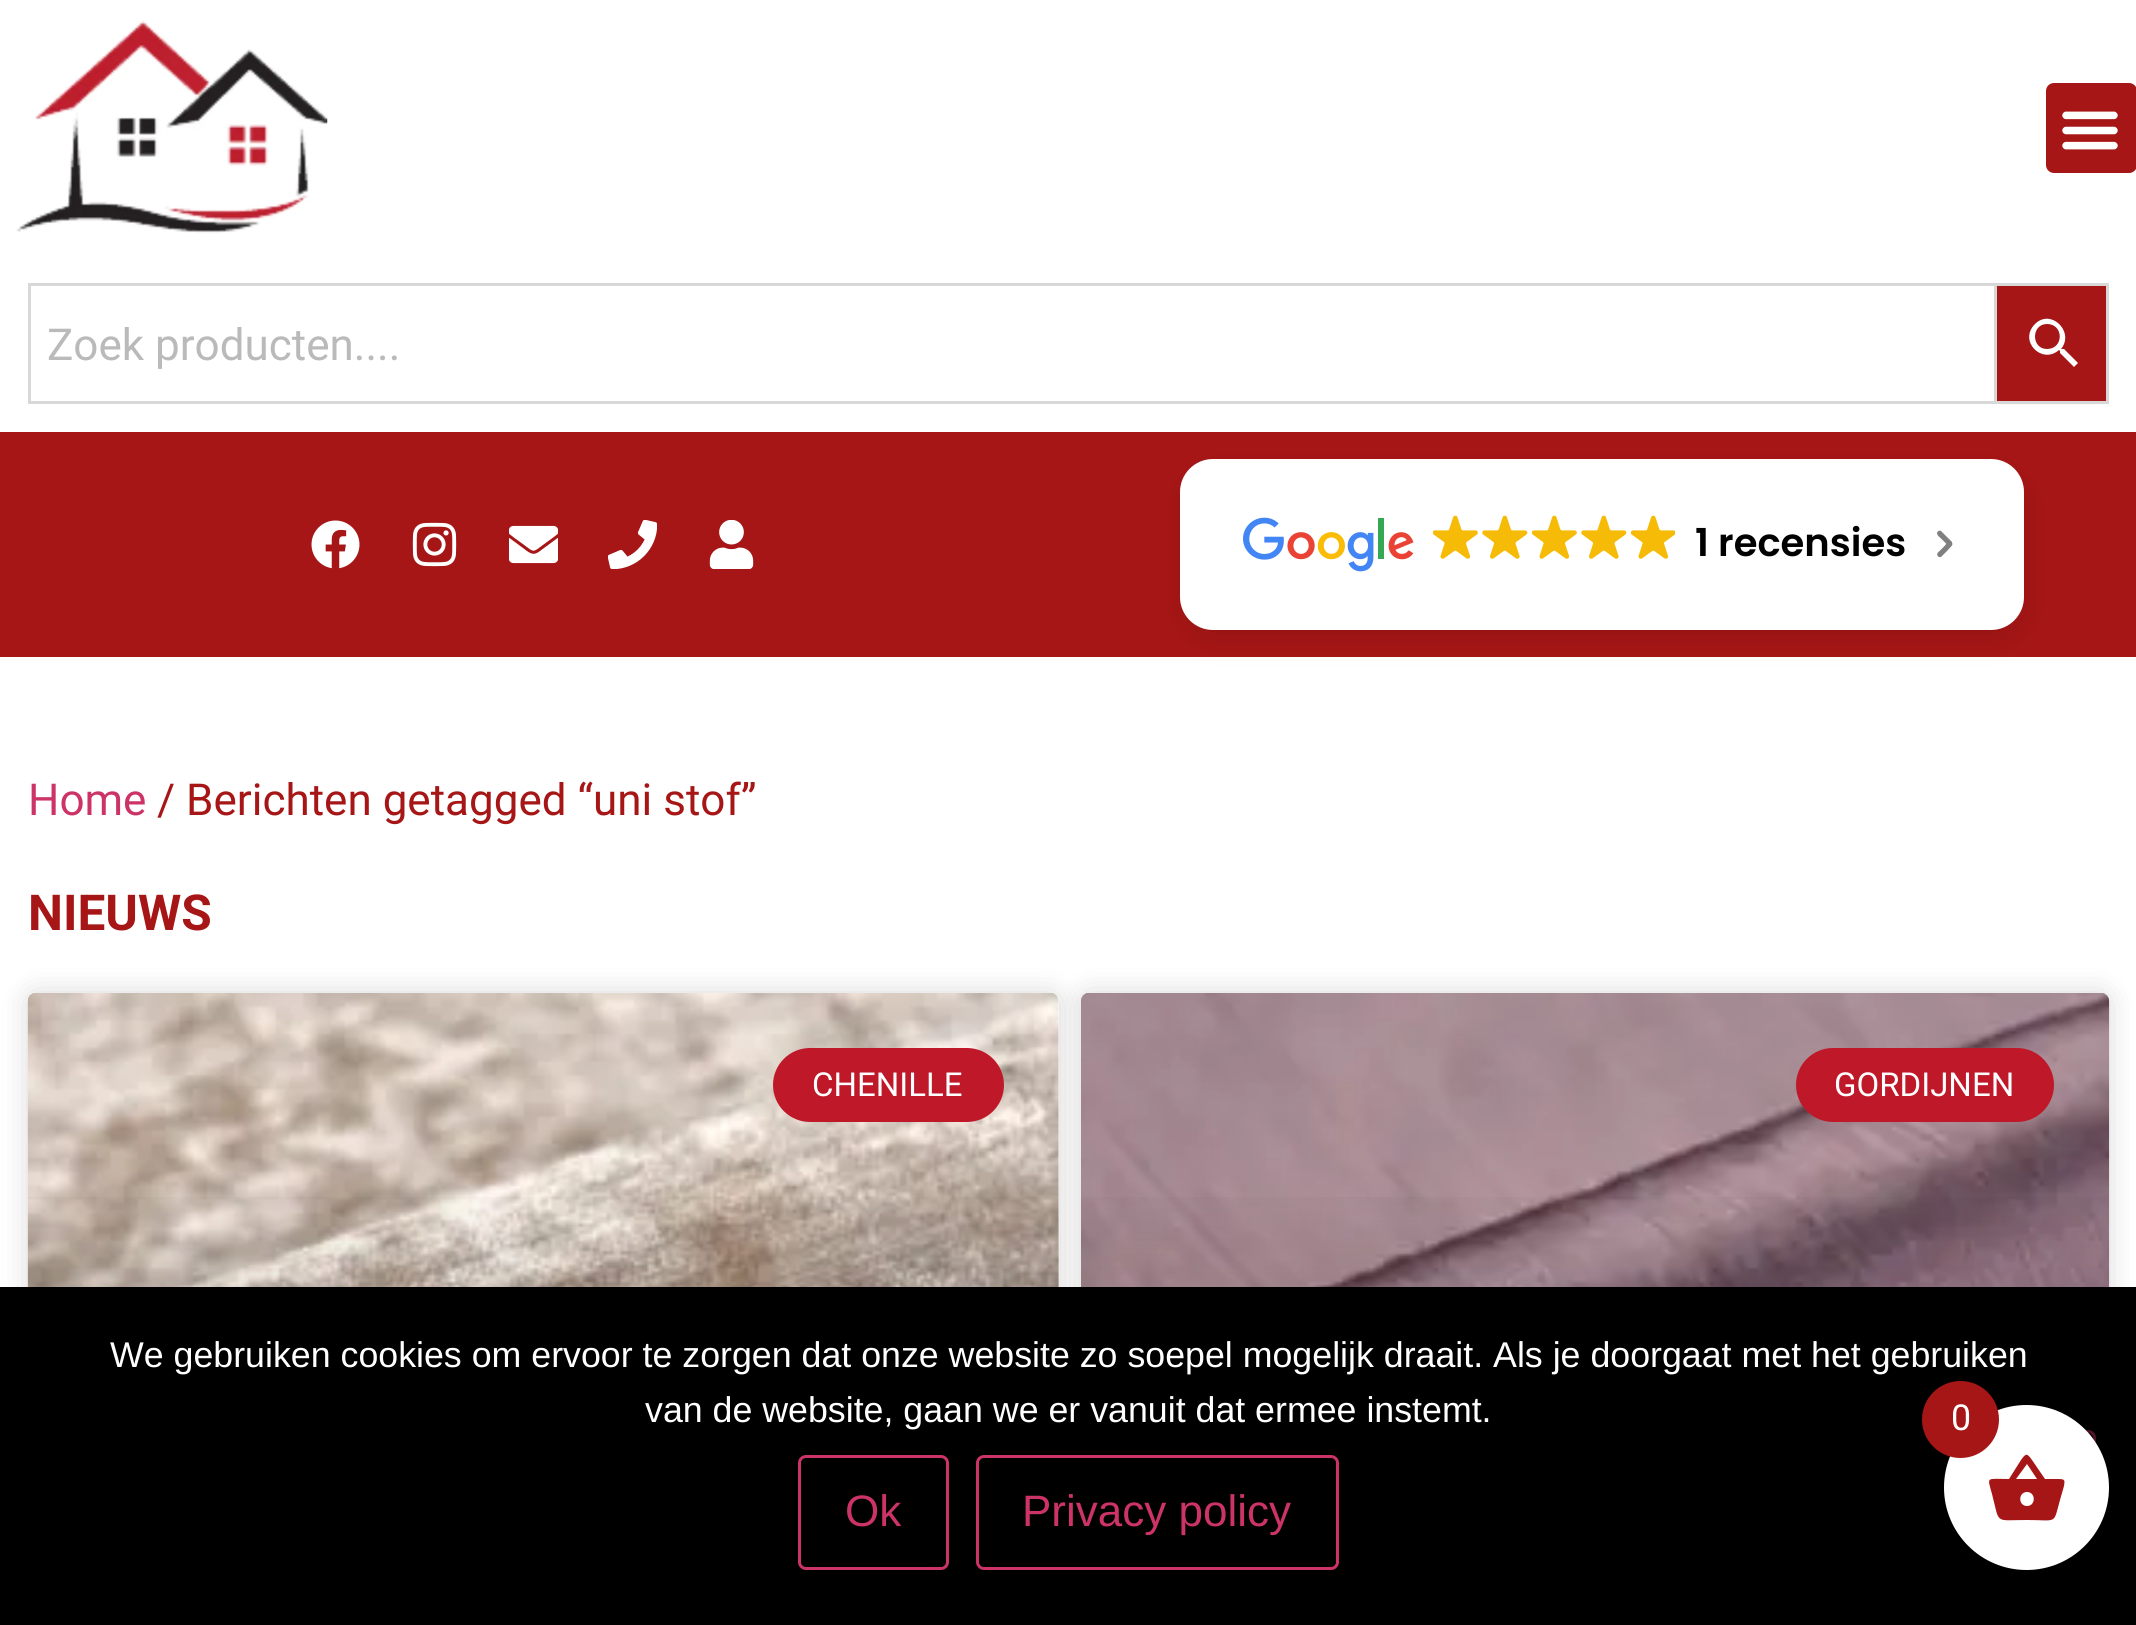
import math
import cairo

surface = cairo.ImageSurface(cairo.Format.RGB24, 2136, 1625)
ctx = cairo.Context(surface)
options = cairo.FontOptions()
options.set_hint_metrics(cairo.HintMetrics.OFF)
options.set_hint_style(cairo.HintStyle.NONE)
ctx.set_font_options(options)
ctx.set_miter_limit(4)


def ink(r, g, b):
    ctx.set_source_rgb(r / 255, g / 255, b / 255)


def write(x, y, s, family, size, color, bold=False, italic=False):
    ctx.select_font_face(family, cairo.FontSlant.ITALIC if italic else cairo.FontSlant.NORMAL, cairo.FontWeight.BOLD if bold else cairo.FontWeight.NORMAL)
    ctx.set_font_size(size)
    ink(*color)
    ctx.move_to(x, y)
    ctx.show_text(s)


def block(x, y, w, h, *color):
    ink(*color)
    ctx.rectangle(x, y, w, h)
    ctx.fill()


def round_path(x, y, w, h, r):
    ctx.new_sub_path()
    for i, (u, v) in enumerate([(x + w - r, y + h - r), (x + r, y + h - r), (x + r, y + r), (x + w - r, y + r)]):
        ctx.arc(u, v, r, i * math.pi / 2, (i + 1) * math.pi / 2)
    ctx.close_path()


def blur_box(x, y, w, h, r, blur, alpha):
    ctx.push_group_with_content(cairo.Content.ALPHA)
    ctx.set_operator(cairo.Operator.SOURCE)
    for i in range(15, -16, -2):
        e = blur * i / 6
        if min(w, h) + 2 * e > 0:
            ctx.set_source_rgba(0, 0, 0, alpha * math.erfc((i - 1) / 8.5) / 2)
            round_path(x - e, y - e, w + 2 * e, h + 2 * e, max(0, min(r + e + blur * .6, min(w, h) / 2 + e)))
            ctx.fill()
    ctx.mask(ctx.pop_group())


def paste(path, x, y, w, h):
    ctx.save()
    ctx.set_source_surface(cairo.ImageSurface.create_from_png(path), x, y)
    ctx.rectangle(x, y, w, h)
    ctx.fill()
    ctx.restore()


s1 = dict(family="Roboto", size=44, color=(186, 186, 186))
s2 = dict(family="Poppins SemiBold", size=38.5, color=(0, 0, 0))
s3 = dict(family="Roboto", size=44, color=(204, 51, 102))
s4 = dict(family="Roboto", size=44, color=(167, 22, 22))
s5 = dict(family="Roboto", size=49.5, color=(167, 22, 22), bold=True)
s6 = dict(family="Roboto", size=33, color=(255, 255, 255))
s7 = dict(family="Liberation Sans", size=35.75, color=(255, 255, 255))
s8 = dict(family="Liberation Sans", size=44, color=(204, 51, 102))
s9 = dict(family="Roboto", size=35.75, color=(255, 255, 255))

ink(255, 255, 255)
ctx.paint()
paste("pic1.png", 16, 20, 312, 214)
ink(167, 22, 22)
round_path(2046, 83, 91, 90, 8)
ctx.fill()
paste("pic2.png", 2062, 111, 56, 39)
ctx.rectangle(1995.5, 284.5, 112, 118)
ctx.fill_preserve()
ink(216, 216, 216)
ctx.set_line_width(3)
ctx.stroke()
ctx.rectangle(29.5, 284.5, 1966, 118)
ctx.stroke()
write(47, 360, "Zoek producten....", **s1)
ink(255, 255, 255)
ctx.new_path()
ctx.move_to(2064, 349)
ctx.line_to(2062, 349)
ctx.line_to(2061, 349)
ctx.curve_to(2075, 332, 2051, 308, 2035, 324)
ctx.curve_to(2018, 341, 2042, 365, 2059, 350)
ctx.line_to(2060, 351)
ctx.line_to(2060, 353)
ctx.line_to(2074, 367)
ctx.line_to(2078, 363)
ctx.close_path()
ctx.move_to(2047, 349)
ctx.curve_to(2031, 349, 2031, 324, 2047, 324)
ctx.curve_to(2064, 324, 2064, 349, 2047, 349)
ctx.close_path()
ctx.fill()
block(0, 432, 2136, 225, 167, 22, 22)
paste("pic3.png", 311, 520, 49, 49)
paste("pic4.png", 412, 522, 45, 45)
paste("pic5.png", 509, 525, 49, 39)
paste("pic6.png", 608, 520, 49, 49)
paste("pic7.png", 709, 520, 45, 49)
ink(0, 0, 0)
blur_box(1183, 470, 844, 171, 33, 14, 0.1)
ink(255, 255, 255)
round_path(1180, 459, 844, 171, 33)
ctx.fill()
paste("pic8.png", 1243, 517, 171, 55)
paste("pic9.png", 1433, 515, 45, 44)
paste("pic10.png", 1482, 515, 46, 44)
paste("pic9.png", 1532, 515, 45, 44)
paste("pic10.png", 1581, 515, 46, 44)
paste("pic11.png", 1631, 515, 44, 44)
write(1695, 556, "1 recensies", **s2)
ink(128, 128, 128)
ctx.new_path()
ctx.move_to(1938, 552.5)
ctx.line_to(1944.5, 546)
ctx.curve_to(1946, 544, 1949.5, 539.5, 1952, 543)
ctx.curve_to(1952.5, 543.5, 1952.5, 544.5, 1952, 545.5)
ctx.line_to(1946.5, 551.5)
ctx.line_to(1941, 557)
ctx.curve_to(1938, 558, 1936, 554.5, 1938, 552.5)
ctx.close_path()
ctx.fill()
ctx.new_path()
ctx.move_to(1947.5, 545)
ctx.line_to(1941, 538.5)
ctx.curve_to(1939.5, 537, 1934.5, 533.5, 1938.5, 531)
ctx.curve_to(1939, 530.5, 1940, 530.5, 1941, 531)
ctx.line_to(1946.5, 536.5)
ctx.line_to(1952, 542)
ctx.curve_to(1953, 545, 1949.5, 547, 1947.5, 545)
ctx.close_path()
ctx.fill()
write(28, 815, "Home", **s3)
write(157, 815, "/ Berichten getagged “uni stof”", **s4)
write(28, 930, "NIEUWS", **s5)
ink(0, 0, 0)
blur_box(28, 993, 1031, 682, 8, 14, 0.15)
ink(255, 255, 255)
round_path(28, 993, 1031, 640, 8)
ctx.fill()
paste("pic12.png", 27, 993, 1032, 294)
gradient = cairo.LinearGradient(543, 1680, 543, 993)
gradient.add_color_stop_rgba(0, 0, 0, 0, 0.35)
gradient.add_color_stop_rgba(0.75, 0, 0, 0, 0)
ctx.set_source(gradient)
ctx.rectangle(28, 1197, 1031, 90)
ctx.fill()
ink(191, 24, 41)
round_path(773, 1048, 231, 74, 37)
ctx.fill()
write(812, 1096, "CHENILLE", **s6)
ink(0, 0, 0)
blur_box(1081, 993, 1028, 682, 8, 14, 0.15)
paste("pic13.png", 1081, 993, 1029, 294)
gradient = cairo.LinearGradient(1595, 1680, 1595, 993)
gradient.add_color_stop_rgba(0, 0, 0, 0, 0.35)
gradient.add_color_stop_rgba(0.75, 0, 0, 0, 0)
ctx.set_source(gradient)
ctx.rectangle(1081, 1197, 1028, 90)
ctx.fill()
ink(191, 24, 41)
round_path(1796, 1048, 258, 74, 37)
ctx.fill()
write(1834, 1096, "GORDIJNEN", **s6)
block(0, 1287, 2136, 338, 0, 0, 0)
write(110, 1367, "We gebruiken cookies om ervoor te zorgen dat onze website zo soepel mogelijk draait. Als je doorgaat met het gebruiken", **s7)
write(645, 1422, "van de website, gaan we er vanuit dat ermee instemt.", **s7)
round_path(2003.5, 1431.5, 91, 47, 6.5)
ink(102, 26, 51)
ctx.stroke()
round_path(799.5, 1456.5, 148, 112, 6.5)
ink(204, 51, 102)
ctx.stroke()
write(845, 1526, "Ok", **s8)
round_path(977.5, 1456.5, 360, 112, 6.5)
ctx.stroke()
write(1022, 1526, "Privacy policy", **s8)
ink(0, 0, 0)
blur_box(1944, 1408, 165, 165, 82.5, 5.5, 1)
ink(255, 255, 255)
ctx.arc(2026.5, 1487.5, 82.5, 0, 2 * math.pi)
ctx.fill()
ink(167, 22, 22)
ctx.new_path()
ctx.move_to(2027, 1506)
ctx.curve_to(2036, 1506, 2036, 1492, 2027, 1492)
ctx.curve_to(2018, 1492, 2018, 1506, 2027, 1506)
ctx.close_path()
ctx.move_to(2016, 1479)
ctx.line_to(2037, 1479)
ctx.line_to(2027, 1464)
ctx.close_path()
ctx.move_to(2045, 1479)
ctx.line_to(2058, 1479)
ctx.curve_to(2065, 1479, 2065, 1480, 2064, 1486)
ctx.line_to(2060, 1500)
ctx.curve_to(2053, 1525, 2058, 1520, 2027, 1520)
ctx.curve_to(1994, 1520, 2000, 1525, 1992, 1494)
ctx.curve_to(1987, 1476, 1986, 1479, 2009, 1479)
ctx.line_to(2021, 1460)
ctx.curve_to(2026, 1453, 2027, 1453, 2032, 1460)
ctx.close_path()
ctx.fill()
ctx.arc(1960.5, 1419.5, 38.5, 0, 2 * math.pi)
ctx.fill()
write(1951, 1430, "0", **s9)
surface.write_to_png("screenshot.png")
